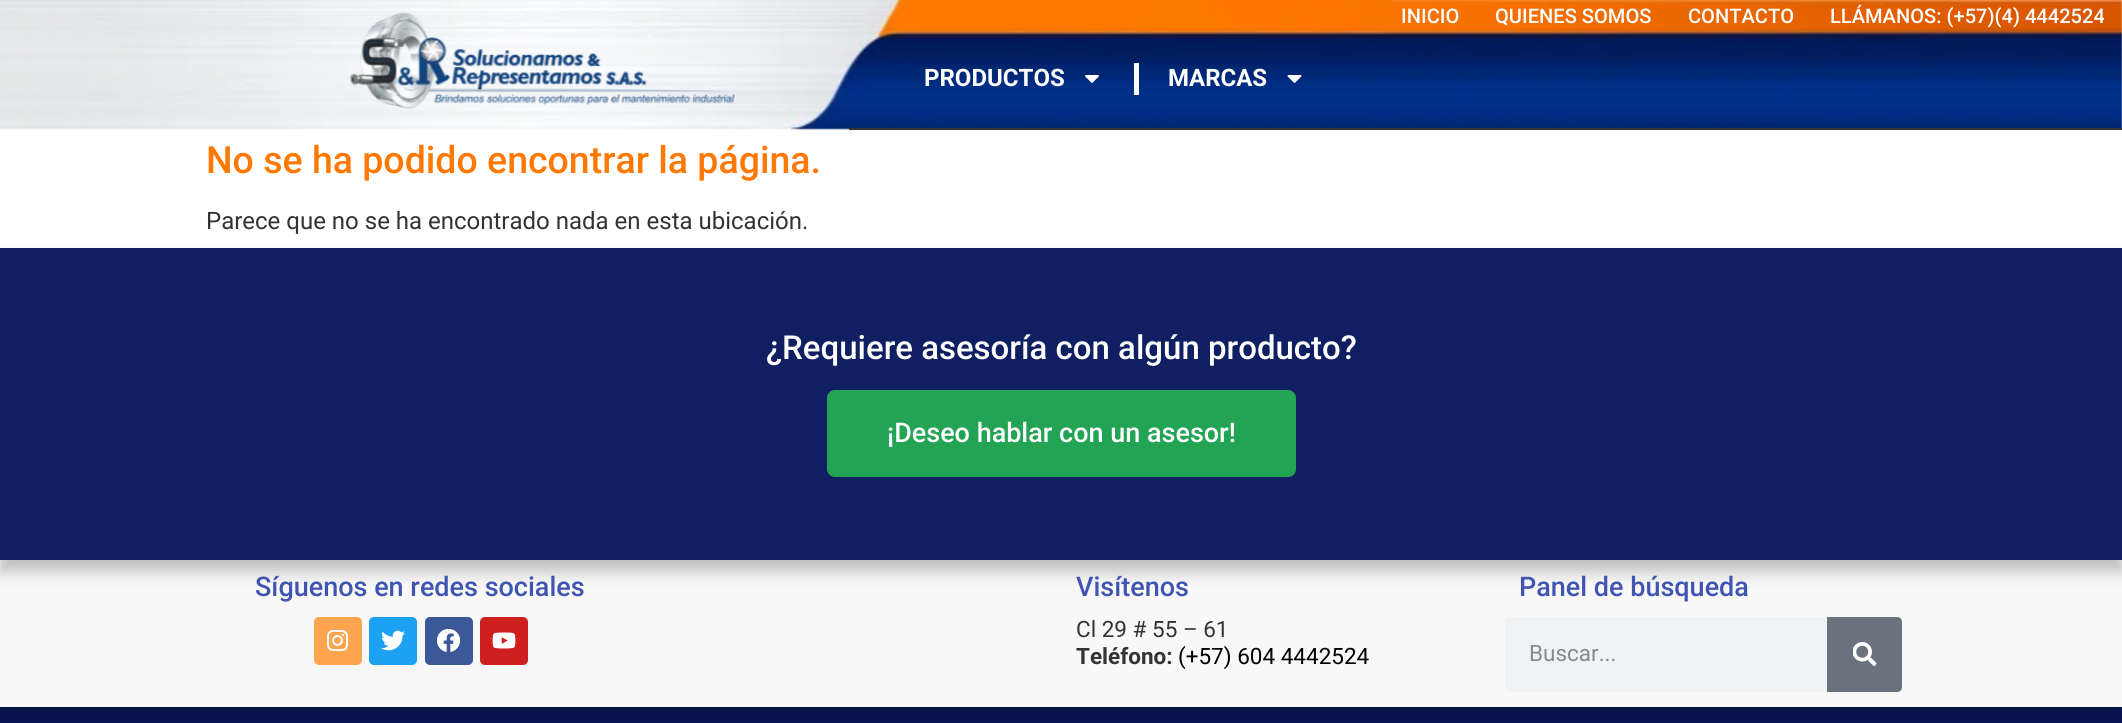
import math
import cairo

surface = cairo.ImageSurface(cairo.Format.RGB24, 2122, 723)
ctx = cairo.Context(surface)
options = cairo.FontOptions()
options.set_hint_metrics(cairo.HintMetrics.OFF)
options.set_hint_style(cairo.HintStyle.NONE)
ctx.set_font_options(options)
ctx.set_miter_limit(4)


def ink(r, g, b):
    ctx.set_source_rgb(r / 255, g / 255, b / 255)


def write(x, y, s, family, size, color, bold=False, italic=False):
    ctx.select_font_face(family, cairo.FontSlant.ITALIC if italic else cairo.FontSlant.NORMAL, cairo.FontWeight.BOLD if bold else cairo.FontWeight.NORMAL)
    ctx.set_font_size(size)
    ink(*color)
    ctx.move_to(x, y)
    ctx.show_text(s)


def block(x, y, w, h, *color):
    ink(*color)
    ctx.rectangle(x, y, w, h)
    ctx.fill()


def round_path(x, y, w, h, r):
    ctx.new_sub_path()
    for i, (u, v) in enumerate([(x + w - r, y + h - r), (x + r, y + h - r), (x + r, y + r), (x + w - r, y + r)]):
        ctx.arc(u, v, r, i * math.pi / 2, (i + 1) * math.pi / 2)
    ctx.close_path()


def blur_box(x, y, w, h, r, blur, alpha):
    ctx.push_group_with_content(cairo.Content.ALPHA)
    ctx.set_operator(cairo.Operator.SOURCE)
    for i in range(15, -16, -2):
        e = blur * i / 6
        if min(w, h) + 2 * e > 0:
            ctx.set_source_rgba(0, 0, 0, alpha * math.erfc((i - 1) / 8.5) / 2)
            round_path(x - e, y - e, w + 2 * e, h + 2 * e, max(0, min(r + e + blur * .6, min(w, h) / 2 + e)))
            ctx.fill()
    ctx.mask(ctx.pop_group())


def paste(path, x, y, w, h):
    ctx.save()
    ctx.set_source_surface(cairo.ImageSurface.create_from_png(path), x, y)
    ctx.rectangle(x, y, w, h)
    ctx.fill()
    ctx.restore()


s1 = dict(family="Roboto Medium", size=20.1, color=(255, 255, 255))
s2 = dict(family="Roboto", size=24, color=(255, 255, 255), bold=True)
s3 = dict(family="Roboto Medium", size=37.5, color=(255, 120, 0))
s4 = dict(family="Roboto", size=24, color=(51, 51, 51))
s5 = dict(family="Roboto Medium", size=33, color=(255, 255, 255))
s6 = dict(family="Roboto Medium", size=27, color=(255, 255, 255))
s7 = dict(family="Roboto Medium", size=27, color=(64, 84, 178))
s8 = dict(family="Roboto", size=22.5, color=(51, 51, 51))
s9 = dict(family="Roboto", size=22.5, color=(51, 51, 51), bold=True)
s10 = dict(family="Roboto", size=22.5, color=(0, 0, 0))
s11 = dict(family="Roboto", size=22.5, color=(134, 138, 142))

ink(255, 255, 255)
ctx.paint()
paste("pic1.png", 0, 0, 2122, 130)
paste("pic2.png", 350, 12, 385, 97)
block(849, 128, 1273, 2, 51, 51, 51)
write(1401, 23, "INICIO", **s1)
write(1495, 23, "QUIENES SOMOS", **s1)
write(1688, 23, "CONTACTO", **s1)
write(1830, 23, "LLÁMANOS: (+57)(4) 4442524", **s1)
write(924, 86, "PRODUCTOS", **s2)
paste("pic3.png", 1085, 75, 14, 8)
block(1134, 63, 5, 32, 255, 255, 255)
write(1168, 86, "MARCAS", **s2)
paste("pic4.png", 1287, 75, 15, 8)
write(206, 173, "No se ha podido encontrar la página.", **s3)
write(206, 229, "Parece que no se ha encontrado nada en esta ubicación.", **s4)
block(0, 707, 2122, 16, 9, 23, 90)
ink(0, 0, 0)
blur_box(0, 572, 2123, 147, 0, 7.5, 0.23)
block(0, 560, 2122, 147, 248, 248, 248)
ink(0, 0, 0)
blur_box(0, 260, 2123, 312, 0, 7.5, 0.23)
block(0, 248, 2122, 312, 16, 31, 97)
write(766, 359, "¿Requiere asesoría con algún producto?", **s5)
ink(35, 164, 85)
round_path(827, 390, 469, 87, 8)
ctx.fill()
write(887, 442, "¡Deseo hablar con un asesor!", **s6)
write(255, 596, "Síguenos en redes sociales", **s7)
ink(255, 164, 79)
round_path(314, 617, 48, 48, 5)
ctx.fill()
paste("pic5.png", 327, 630, 21, 21)
ink(29, 161, 242)
round_path(369, 617, 48, 48, 5)
ctx.fill()
paste("pic6.png", 381, 630, 24, 21)
ink(59, 89, 152)
round_path(425, 617, 48, 48, 5)
ctx.fill()
paste("pic7.png", 437, 629, 24, 23)
ink(205, 32, 31)
round_path(480, 617, 48, 48, 5)
ctx.fill()
paste("pic8.png", 492, 632, 24, 17)
write(1076, 596, "Visítenos", **s7)
write(1076, 637, "Cl 29 # 55 – 61", **s8)
write(1076, 664, "Teléfono:", **s9)
write(1178, 664, "(+57) 604 4442524", **s10)
write(1519, 596, "Panel de búsqueda", **s7)
ink(241, 242, 243)
round_path(1505, 617, 397, 75, 5)
ctx.fill()
write(1529, 661, "Buscar...", **s11)
ink(105, 114, 125)
ctx.new_path()
ctx.move_to(1827, 617)
ctx.line_to(1897, 617)
ctx.curve_to(1900, 617, 1902, 619, 1902, 622)
ctx.line_to(1902, 687)
ctx.curve_to(1902, 690, 1900, 692, 1897, 692)
ctx.line_to(1827, 692)
ctx.close_path()
ctx.fill()
paste("pic9.png", 1853, 642, 24, 24)
surface.write_to_png("screenshot.png")
